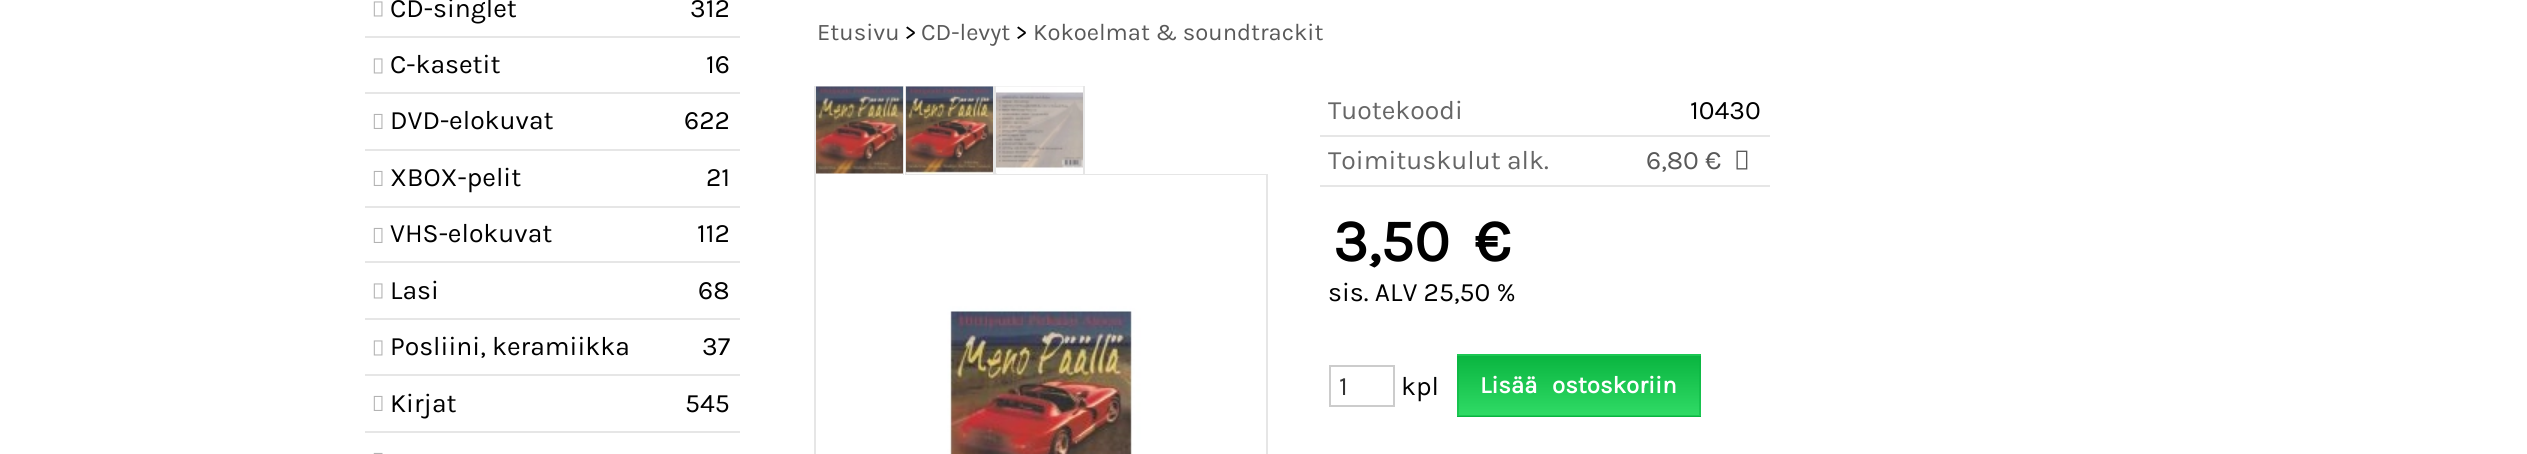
import math
import cairo

surface = cairo.ImageSurface(cairo.Format.RGB24, 2527, 454)
ctx = cairo.Context(surface)
options = cairo.FontOptions()
options.set_hint_metrics(cairo.HintMetrics.OFF)
options.set_hint_style(cairo.HintStyle.NONE)
ctx.set_font_options(options)
ctx.set_miter_limit(4)


def ink(r, g, b):
    ctx.set_source_rgb(r / 255, g / 255, b / 255)


def write(x, y, s, family, size, color, bold=False, italic=False):
    ctx.select_font_face(family, cairo.FontSlant.ITALIC if italic else cairo.FontSlant.NORMAL, cairo.FontWeight.BOLD if bold else cairo.FontWeight.NORMAL)
    ctx.set_font_size(size)
    ink(*color)
    ctx.move_to(x, y)
    ctx.show_text(s)


def write_spaced(x, y, s, letter, word):
    ctx.move_to(x, y)
    for ch in s:
        ctx.show_text(ch)
        ctx.rel_move_to(letter + word * (ch == ' '), 0)


def block(x, y, w, h, *color):
    ink(*color)
    ctx.rectangle(x, y, w, h)
    ctx.fill()


def paste(path, x, y, w, h):
    ctx.save()
    ctx.set_source_surface(cairo.ImageSurface.create_from_png(path), x, y)
    ctx.rectangle(x, y, w, h)
    ctx.fill()
    ctx.restore()


s1 = dict(family="Karla", size=26.5, color=(0, 0, 0))
s2 = dict(family="Karla", size=23.75, color=(89, 89, 89))
s3 = dict(family="Karla", size=23.75, color=(0, 0, 0))
s4 = dict(family="Karla", size=26.5, color=(102, 102, 102))
s5 = dict(family="Karla", size=26.5, color=(89, 89, 89))
s6 = dict(family="Karla", size=59.5, color=(0, 0, 0), bold=True)
s7 = dict(family="Karla", size=26.5, color=(51, 51, 51))

ink(255, 255, 255)
ctx.paint()
block(365, 36, 375, 2, 230, 230, 230)
paste("pic1.png", 373, 1, 10, 16)
write(390, 17, "CD-singlet", **s1)
write(690, 17, "312", **s1)
block(365, 92, 375, 2, 230, 230, 230)
paste("pic1.png", 373, 58, 10, 16)
write(390, 73, "C-kasetit", **s1)
write(706, 73, "16", **s1)
block(365, 149, 375, 2, 230, 230, 230)
paste("pic2.png", 373, 113, 10, 16)
write(390, 129, "DVD-elokuvat", **s1)
write(684, 129, "622", **s1)
block(365, 206, 375, 2, 230, 230, 230)
paste("pic2.png", 373, 170, 10, 16)
write(390, 186, "XBOX-pelit", **s1)
write(706, 186, "21", **s1)
block(365, 261, 375, 2, 230, 230, 230)
paste("pic2.png", 373, 227, 10, 16)
write(390, 242, "VHS-elokuvat", **s1)
write(697, 242, "112", **s1)
block(365, 318, 375, 2, 230, 230, 230)
paste("pic1.png", 373, 283, 10, 16)
write(390, 299, "Lasi", **s1)
write(698, 299, "68", **s1)
block(365, 374, 375, 2, 230, 230, 230)
paste("pic1.png", 373, 340, 10, 16)
write(390, 355, "Posliini, keramiikka", **s1)
write(702, 355, "37", **s1)
block(365, 431, 375, 2, 230, 230, 230)
paste("pic2.png", 373, 395, 10, 16)
write(390, 412, "Kirjat", **s1)
write(685, 412, "545", **s1)
paste("pic3.png", 373, 452, 10, 2)
write(817, 40, "Etusivu", **s2)
write(905, 40, ">", **s3)
write(921, 40, "CD-levyt", **s2)
write(1016, 40, ">", **s3)
write(1033, 40, "Kokoelmat & soundtrackit", **s2)
ink(230, 230, 230)
ctx.new_path()
ctx.move_to(814, 86)
ctx.line_to(904, 86)
ctx.line_to(903, 87)
ctx.line_to(816, 87)
ctx.close_path()
ctx.fill()
ctx.set_source_rgba(0, 0, 0, 0.1)
ctx.new_path()
ctx.move_to(904, 86)
ctx.line_to(904, 176)
ctx.line_to(903, 176)
ctx.line_to(903, 87)
ctx.close_path()
ctx.fill()
ctx.new_path()
ctx.move_to(814, 176)
ctx.line_to(814, 86)
ctx.line_to(816, 87)
ctx.line_to(816, 176)
ctx.close_path()
ctx.fill()
paste("pic4.png", 816, 86, 87, 88)
ctx.rectangle(906, 87, 88, 88)
ink(230, 230, 230)
ctx.stroke()
paste("pic5.png", 906, 86, 87, 88)
ctx.rectangle(996, 87, 88, 88)
ctx.stroke()
paste("pic6.png", 996, 86, 87, 88)
block(1085, 174, 183, 2, 230, 230, 230)
ctx.new_path()
ctx.move_to(1268, 176)
ctx.line_to(1268, 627)
ctx.line_to(1266, 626)
ctx.line_to(1266, 176)
ctx.close_path()
ctx.fill()
ctx.new_path()
ctx.move_to(814, 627)
ctx.line_to(814, 176)
ctx.line_to(816, 176)
ctx.line_to(816, 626)
ctx.close_path()
ctx.fill()
paste("pic7.png", 903, 175, 363, 279)
block(1320, 135, 450, 2, 230, 230, 230)
write(1328, 119, "Tuotekoodi", **s4)
write(1690, 119, "10430", **s1)
block(1320, 185, 450, 2, 230, 230, 230)
write(1328, 169, "Toimituskulut alk.", **s4)
write(1646, 169, "6,80 €", **s5)
paste("pic8.png", 1736, 150, 12, 20)
write(1333, 261, "3,50", **s6)
write(1474, 261, "€", **s6)
write(1328, 301, "sis. ALV 25,50 %", **s1)
ctx.rectangle(1330, 366, 64, 40)
ink(204, 204, 204)
ctx.stroke()
write(1339, 395, "1", **s7)
write(1401, 395, "kpl", **s1)
block(1457, 416, 244, 1, 10, 181, 64)
gradient = cairo.LinearGradient(1579, 296, 1579, 356)
gradient.add_color_stop_rgba(0, 0.039, 0.71, 0.251, 1)
gradient.add_color_stop_rgba(1, 0.188, 0.859, 0.4, 1)
ctx.set_source(gradient)
ctx.rectangle(1457, 354, 244, 2)
ctx.fill()
gradient = cairo.LinearGradient(1579, 356, 1579, 416)
gradient.add_color_stop_rgba(0, 0.039, 0.71, 0.251, 1)
gradient.add_color_stop_rgba(1, 0.188, 0.859, 0.4, 1)
ctx.set_source(gradient)
ctx.rectangle(1457, 356, 244, 60)
ctx.fill()
ctx.rectangle(1458, 355, 242, 61)
ctx.set_source_rgba(0.039, 0.71, 0.251, 0.5)
ctx.stroke()
ctx.select_font_face("Karla", cairo.FontSlant.NORMAL, cairo.FontWeight.BOLD)
ctx.set_font_size(24)
ink(255, 255, 255)
write_spaced(1480, 393, "Lisää ostoskoriin", 0, 9)
surface.write_to_png("screenshot.png")
